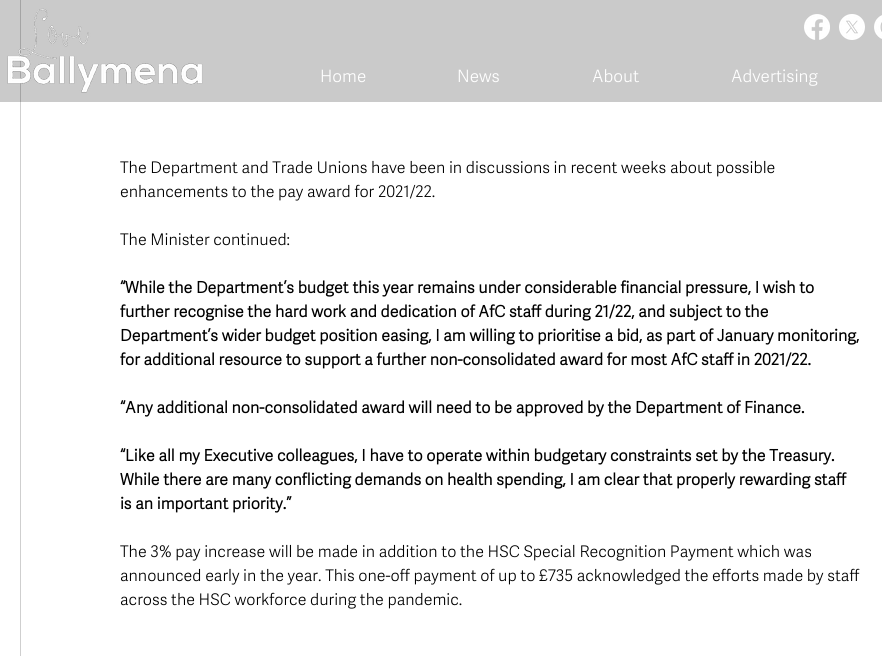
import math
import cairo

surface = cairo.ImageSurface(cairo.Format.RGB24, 882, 656)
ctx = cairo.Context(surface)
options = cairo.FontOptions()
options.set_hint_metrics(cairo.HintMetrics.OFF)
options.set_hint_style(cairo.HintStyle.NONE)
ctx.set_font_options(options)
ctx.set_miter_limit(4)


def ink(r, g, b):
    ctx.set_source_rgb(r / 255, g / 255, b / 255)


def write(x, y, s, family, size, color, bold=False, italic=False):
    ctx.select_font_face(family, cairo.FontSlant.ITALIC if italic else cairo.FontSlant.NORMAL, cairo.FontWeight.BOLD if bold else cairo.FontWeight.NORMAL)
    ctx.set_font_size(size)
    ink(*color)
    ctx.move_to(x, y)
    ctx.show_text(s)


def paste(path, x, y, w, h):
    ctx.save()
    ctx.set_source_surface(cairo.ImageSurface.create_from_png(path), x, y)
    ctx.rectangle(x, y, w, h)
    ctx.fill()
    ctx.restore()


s1 = dict(family="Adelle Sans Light", size=17, color=(255, 255, 255))
s2 = dict(family="Adelle Sans Light", size=16, color=(0, 0, 0))
s3 = dict(family="Adelle Sans", size=16, color=(0, 0, 0), bold=True)

ink(255, 255, 255)
ctx.paint()
ctx.rectangle(20.5, -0.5, 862, 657)
ink(207, 207, 207)
ctx.set_line_width(1)
ctx.stroke()
ctx.set_source_rgba(0, 0, 0, 0.21)
ctx.rectangle(0, 0, 882, 102)
ctx.fill()
paste("pic1.png", 7, 8, 196, 85)
paste("pic2.png", 804, 14, 26, 26)
paste("pic3.png", 839, 14, 26, 26)
paste("pic4.png", 874, 15, 8, 24)
write(320, 82, "Home", **s1)
write(457, 82, "News", **s1)
write(592, 82, "About", **s1)
write(731, 82, "Advertising", **s1)
write(120, 173, "The Department and Trade Unions have been in discussions in recent weeks about possible", **s2)
write(120, 197, "enhancements to the pay award for 2021/22.", **s2)
write(120, 245, "The Minister continued:", **s2)
write(120, 293, "“While the Department’s budget this year remains under considerable financial pressure, I wish to", **s3)
write(120, 317, "further recognise the hard work and dedication of AfC staff during 21/22, and subject to the", **s3)
write(120, 341, "Department’s wider budget position easing, I am willing to prioritise a bid, as part of January monitoring,", **s3)
write(120, 365, "for additional resource to support a further non-consolidated award for most AfC staff in 2021/22.", **s3)
write(120, 413, "“Any additional non-consolidated award will need to be approved by the Department of Finance.", **s3)
write(120, 461, "“Like all my Executive colleagues, I have to operate within budgetary constraints set by the Treasury.", **s3)
write(120, 485, "While there are many conflicting demands on health spending, I am clear that properly rewarding staff", **s3)
write(120, 509, "is an important priority.”", **s3)
write(120, 557, "The 3% pay increase will be made in addition to the HSC Special Recognition Payment which was", **s2)
write(120, 581, "announced early in the year. This one-off payment of up to £735 acknowledged the efforts made by staff", **s2)
write(120, 605, "across the HSC workforce during the pandemic.", **s2)
surface.write_to_png("screenshot.png")
